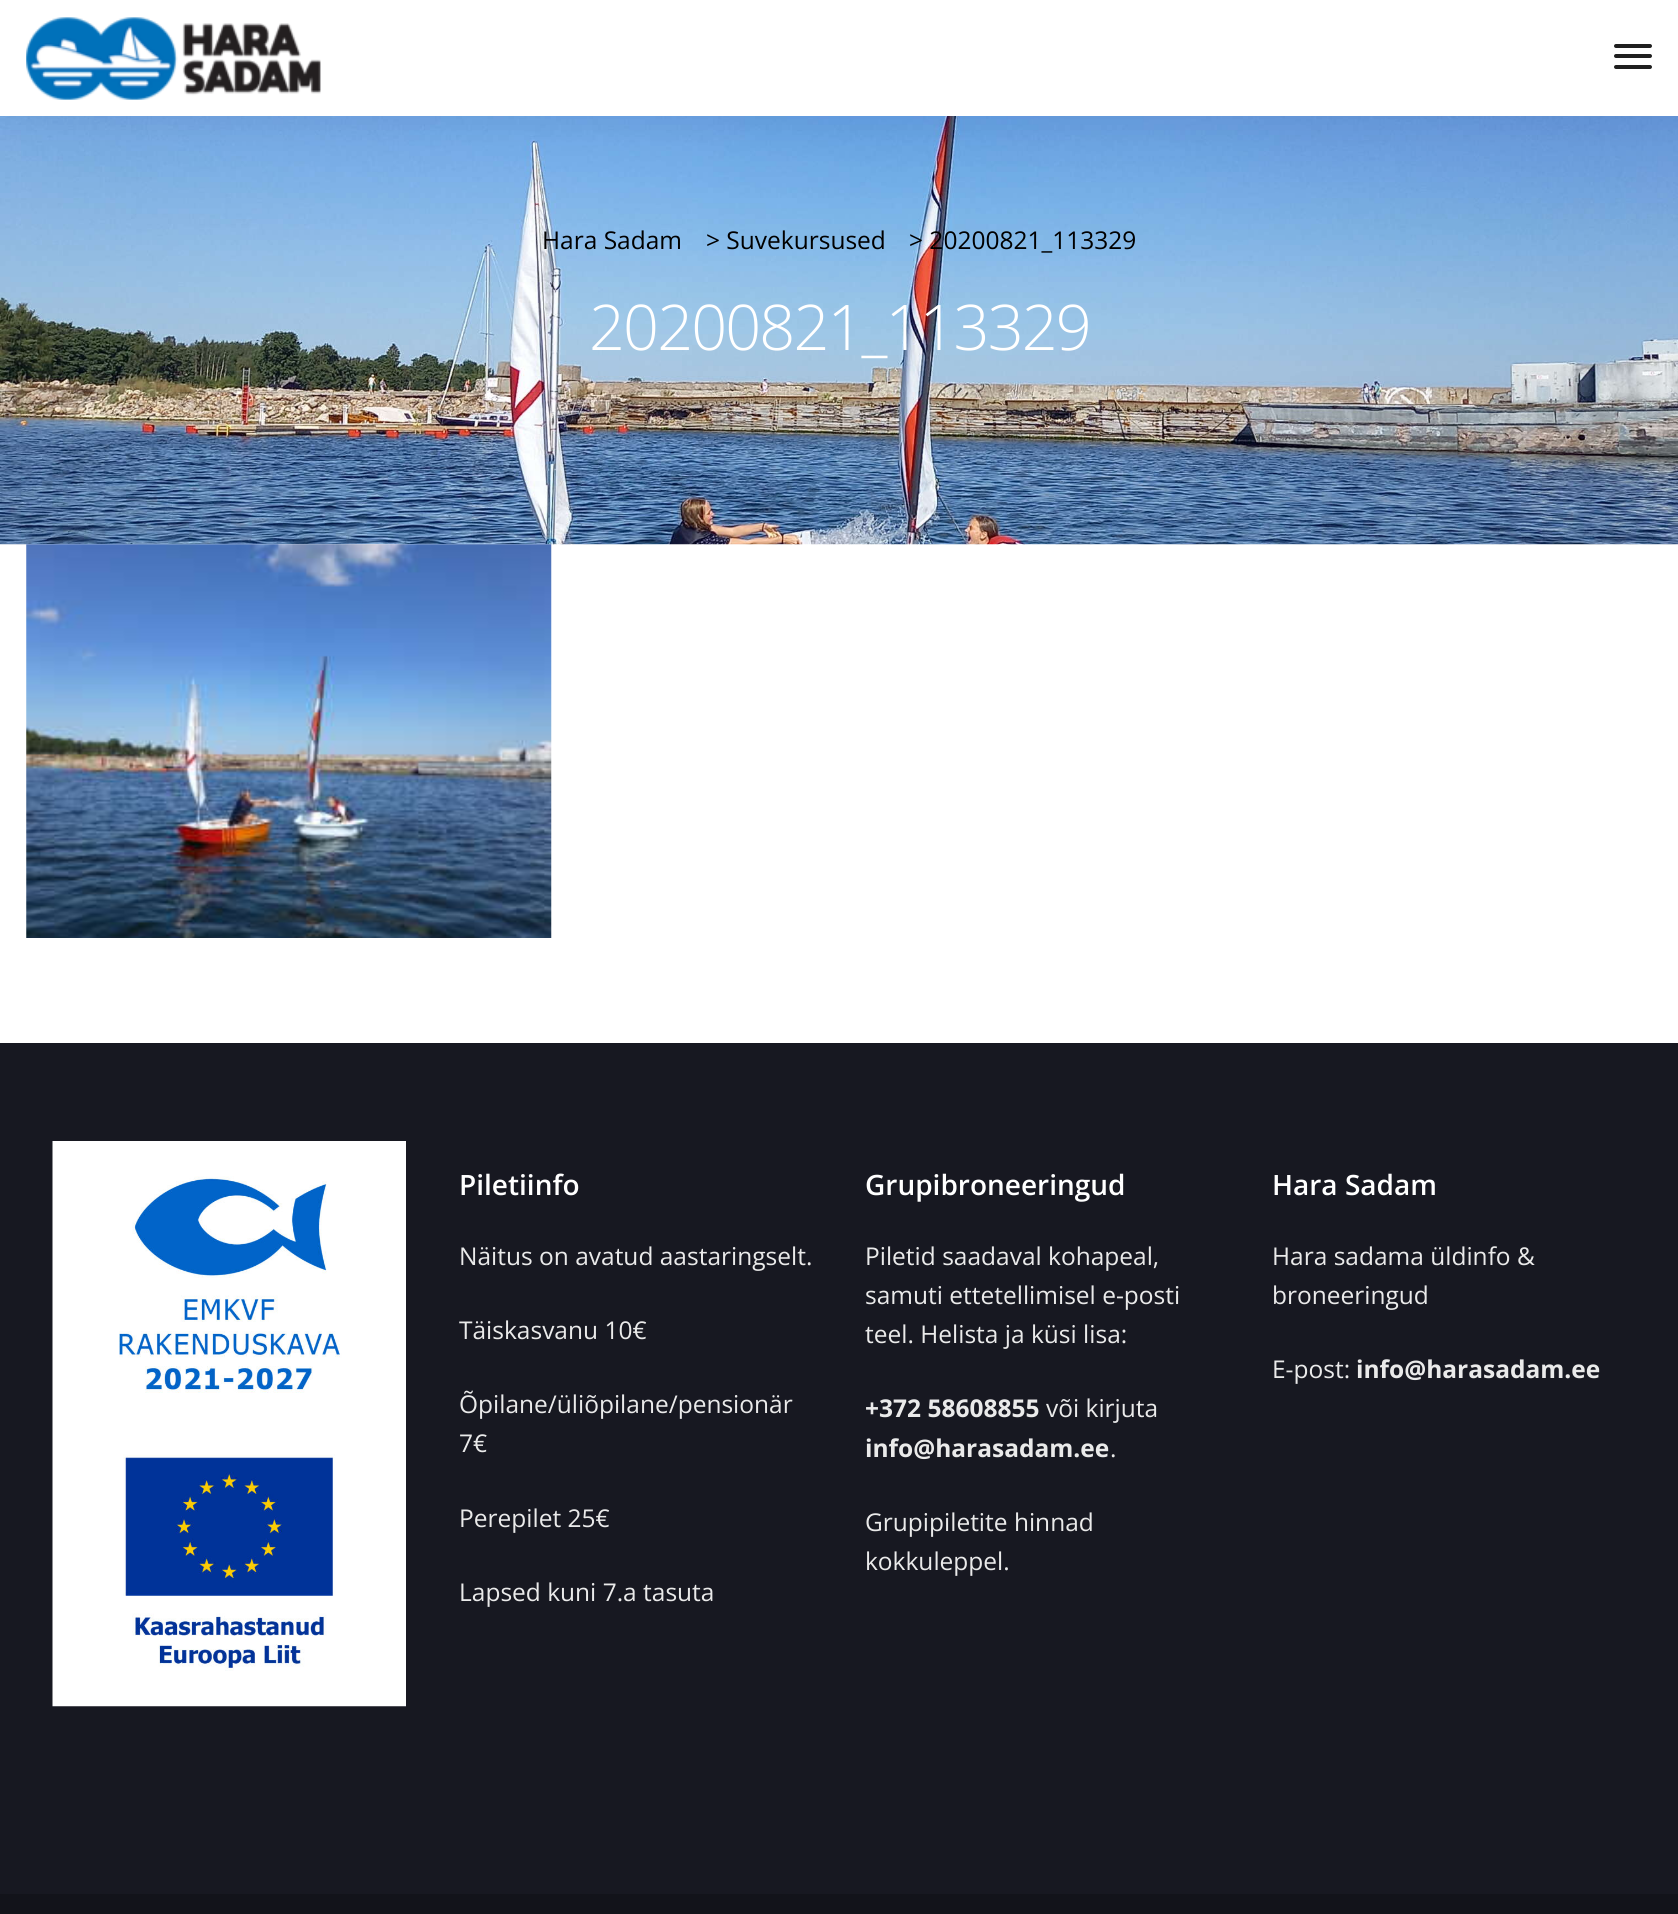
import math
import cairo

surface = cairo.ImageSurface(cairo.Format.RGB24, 1678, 1914)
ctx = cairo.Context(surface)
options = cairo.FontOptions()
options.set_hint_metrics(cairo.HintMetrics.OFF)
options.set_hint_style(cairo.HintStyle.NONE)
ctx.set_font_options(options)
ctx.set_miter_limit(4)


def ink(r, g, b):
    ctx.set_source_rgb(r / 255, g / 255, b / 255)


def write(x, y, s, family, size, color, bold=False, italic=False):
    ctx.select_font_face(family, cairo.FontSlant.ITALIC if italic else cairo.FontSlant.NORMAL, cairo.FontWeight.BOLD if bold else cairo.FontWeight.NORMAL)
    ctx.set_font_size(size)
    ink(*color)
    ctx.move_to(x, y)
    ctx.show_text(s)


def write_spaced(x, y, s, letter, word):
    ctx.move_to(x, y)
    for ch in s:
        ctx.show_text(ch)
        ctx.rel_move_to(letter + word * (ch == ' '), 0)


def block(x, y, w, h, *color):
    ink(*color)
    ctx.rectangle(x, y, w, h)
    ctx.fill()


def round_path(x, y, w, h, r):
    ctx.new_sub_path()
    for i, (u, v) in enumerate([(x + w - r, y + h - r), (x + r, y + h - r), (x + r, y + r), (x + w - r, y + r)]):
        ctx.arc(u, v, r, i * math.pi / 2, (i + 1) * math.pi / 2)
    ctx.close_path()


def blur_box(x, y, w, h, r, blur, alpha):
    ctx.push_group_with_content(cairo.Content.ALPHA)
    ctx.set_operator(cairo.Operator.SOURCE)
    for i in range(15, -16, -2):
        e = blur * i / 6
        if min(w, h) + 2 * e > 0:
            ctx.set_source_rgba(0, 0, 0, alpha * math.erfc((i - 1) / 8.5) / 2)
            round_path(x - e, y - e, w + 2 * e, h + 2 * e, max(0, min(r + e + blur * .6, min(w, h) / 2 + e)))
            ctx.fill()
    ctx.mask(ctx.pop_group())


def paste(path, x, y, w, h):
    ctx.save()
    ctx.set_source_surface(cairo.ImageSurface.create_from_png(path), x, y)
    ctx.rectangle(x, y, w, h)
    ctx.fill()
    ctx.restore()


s1 = dict(family="Open Sans", size=24.5, color=(0, 0, 0))
s2 = dict(family="Open Sans SemiBold", size=28, color=(255, 255, 255))
s3 = dict(family="Open Sans", size=24.5, color=(234, 234, 234))
s4 = dict(family="Open Sans", size=24.5, color=(234, 234, 234), bold=True)

ink(255, 255, 255)
ctx.paint()
paste("pic2.png", 0, 116, 1678, 429)
ink(0, 0, 0)
blur_box(0, 0, 1678, 116, 0, 17.5, 0.05)
block(0, 0, 1678, 116, 255, 255, 255)
paste("pic1.png", 26, 17, 295, 83)
ink(31, 31, 31)
round_path(1614, 44, 38, 4, 2)
ctx.fill()
round_path(1614, 54, 38, 4, 2)
ctx.fill()
round_path(1614, 65, 38, 4, 2)
ctx.fill()
write(542, 249, "Hara Sadam", **s1)
write(706, 249, "> Suvekursused", **s1)
write(909, 249, "> 20200821_113329", **s1)
ctx.select_font_face("Open Sans Light")
ctx.set_font_size(63)
ink(255, 255, 255)
write_spaced(589, 350, "20200821_113329", -1.9, 0)
paste("pic3.png", 26, 544, 526, 394)
block(0, 1043, 1678, 851, 23, 24, 33)
paste("pic4.png", 52, 1141, 354, 566)
write(459, 1195, "Piletiinfo", **s2)
write(459, 1265, "Näitus on avatud aastaringselt.", **s3)
write(459, 1339, "Täiskasvanu 10€", **s3)
write(459, 1413, "Õpilane/üliõpilane/pensionär", **s3)
write(459, 1452, "7€", **s3)
write(459, 1527, "Perepilet 25€", **s3)
write(459, 1601, "Lapsed kuni 7.a tasuta", **s3)
write(865, 1195, "Grupibroneeringud", **s2)
write(865, 1265, "Piletid saadaval kohapeal,", **s3)
write(865, 1304, "samuti ettetellimisel e-posti", **s3)
write(865, 1343, "teel. Helista ja küsi lisa:", **s3)
write(865, 1417, "+372 58608855", **s4)
write(1046, 1417, "või kirjuta", **s3)
write(865, 1457, "info@harasadam.ee", **s4)
write(1110, 1457, ".", **s3)
write(865, 1531, "Grupipiletite hinnad", **s3)
write(865, 1570, "kokkuleppel.", **s3)
write(1272, 1195, "Hara Sadam", **s2)
write(1272, 1265, "Hara sadama üldinfo &", **s3)
write(1272, 1304, "broneeringud", **s3)
write(1272, 1378, "E-post:", **s3)
write(1356, 1378, "info@harasadam.ee", **s4)
block(0, 1894, 1678, 20, 18, 19, 26)
surface.write_to_png("screenshot.png")
